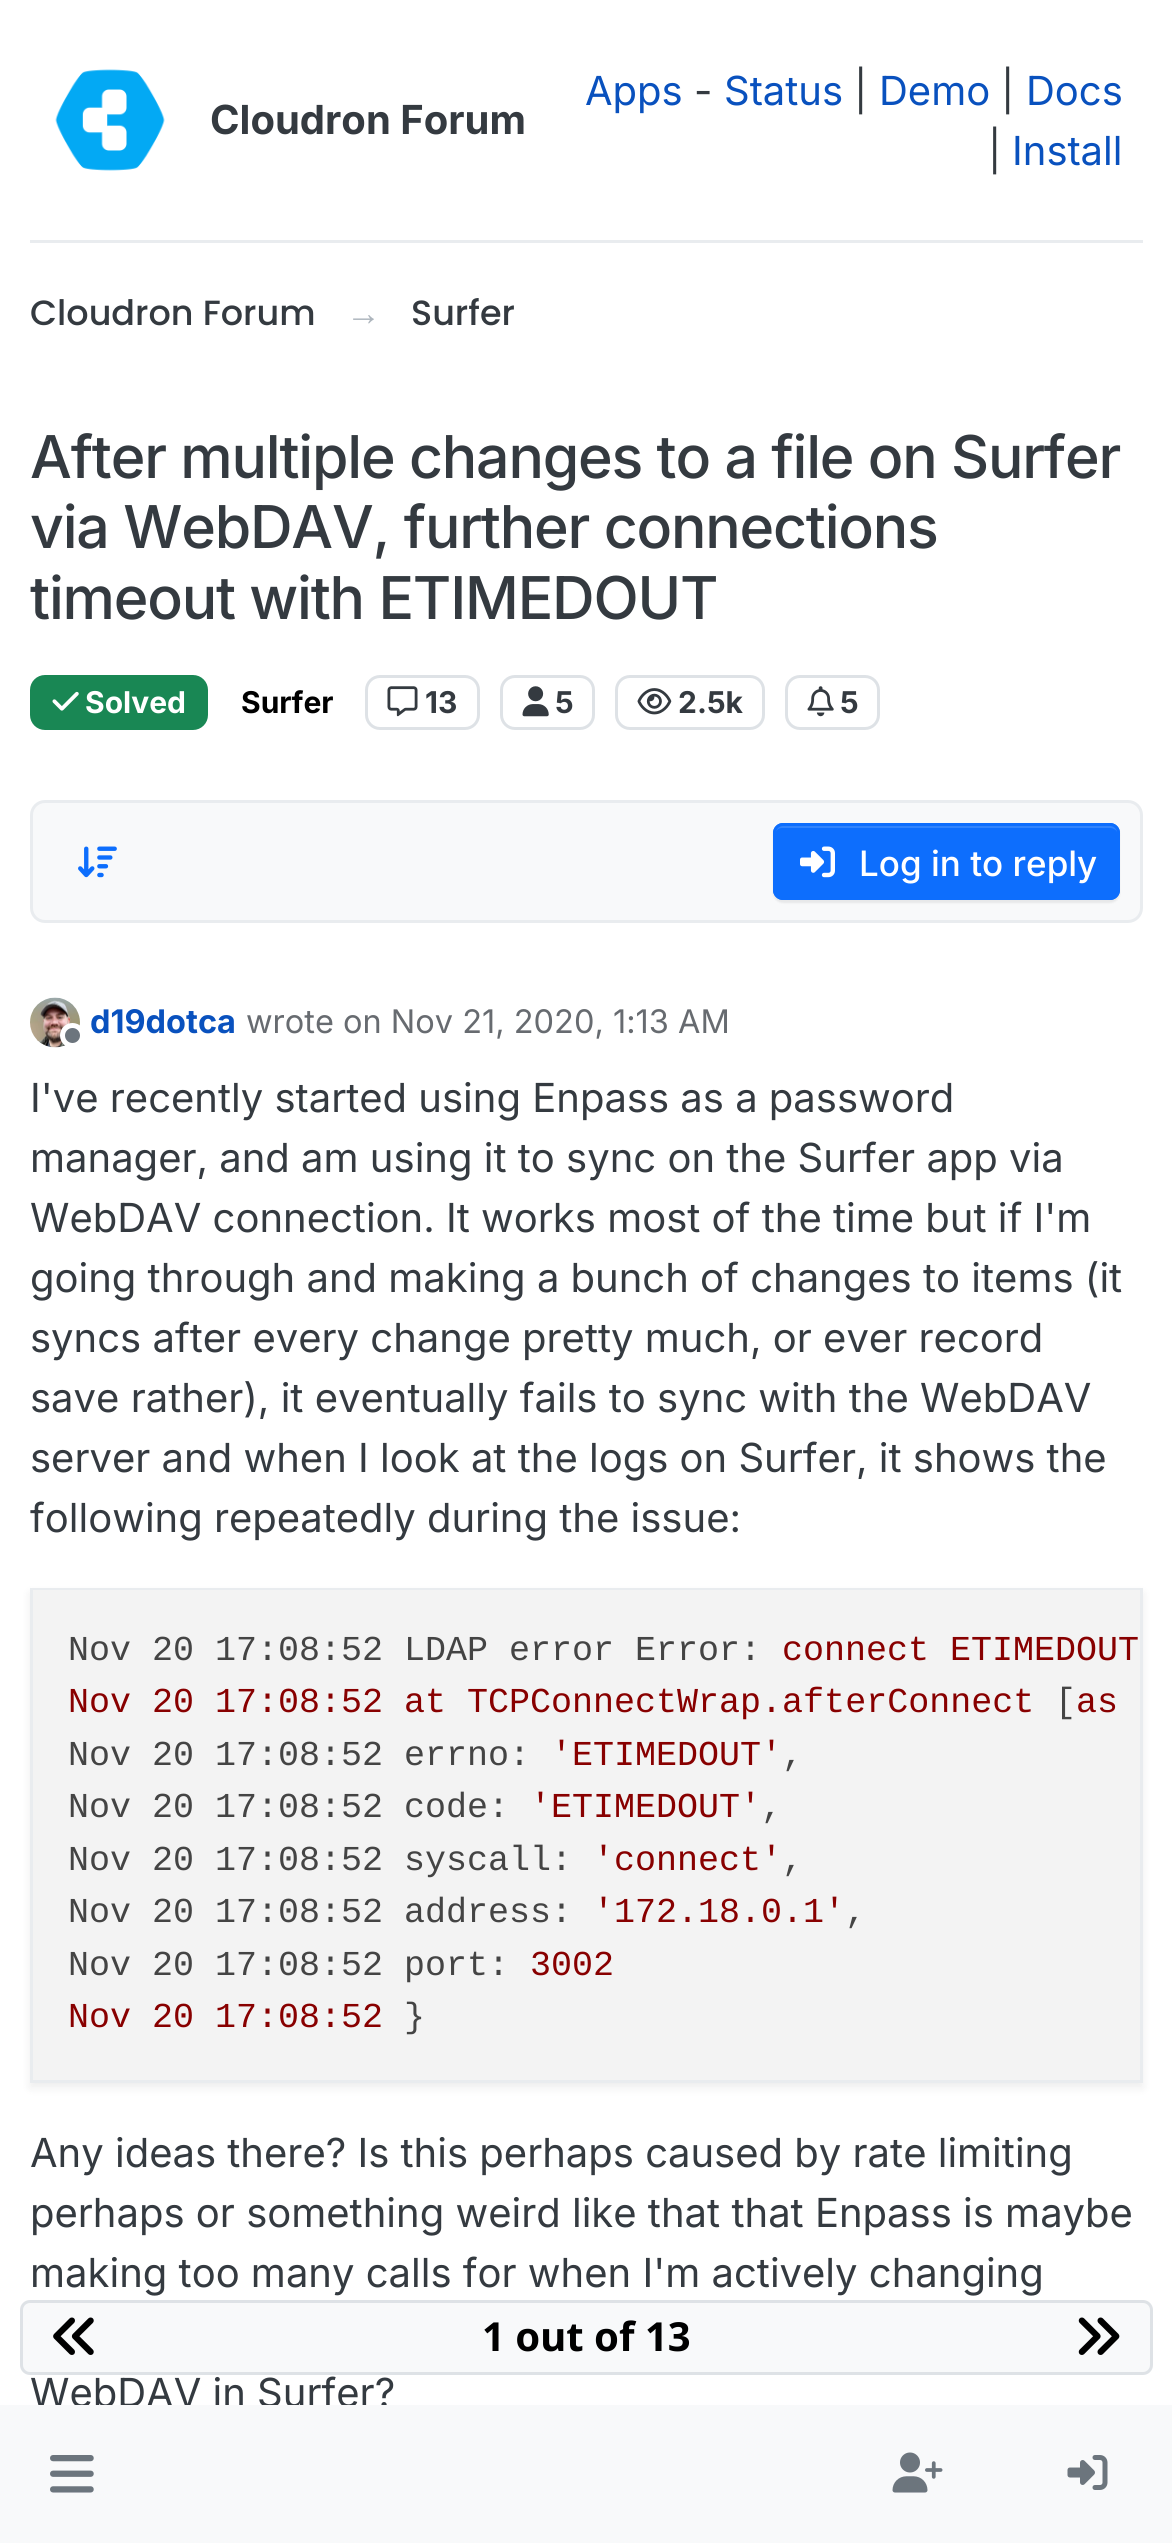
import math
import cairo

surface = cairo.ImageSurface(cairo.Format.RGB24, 1172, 2543)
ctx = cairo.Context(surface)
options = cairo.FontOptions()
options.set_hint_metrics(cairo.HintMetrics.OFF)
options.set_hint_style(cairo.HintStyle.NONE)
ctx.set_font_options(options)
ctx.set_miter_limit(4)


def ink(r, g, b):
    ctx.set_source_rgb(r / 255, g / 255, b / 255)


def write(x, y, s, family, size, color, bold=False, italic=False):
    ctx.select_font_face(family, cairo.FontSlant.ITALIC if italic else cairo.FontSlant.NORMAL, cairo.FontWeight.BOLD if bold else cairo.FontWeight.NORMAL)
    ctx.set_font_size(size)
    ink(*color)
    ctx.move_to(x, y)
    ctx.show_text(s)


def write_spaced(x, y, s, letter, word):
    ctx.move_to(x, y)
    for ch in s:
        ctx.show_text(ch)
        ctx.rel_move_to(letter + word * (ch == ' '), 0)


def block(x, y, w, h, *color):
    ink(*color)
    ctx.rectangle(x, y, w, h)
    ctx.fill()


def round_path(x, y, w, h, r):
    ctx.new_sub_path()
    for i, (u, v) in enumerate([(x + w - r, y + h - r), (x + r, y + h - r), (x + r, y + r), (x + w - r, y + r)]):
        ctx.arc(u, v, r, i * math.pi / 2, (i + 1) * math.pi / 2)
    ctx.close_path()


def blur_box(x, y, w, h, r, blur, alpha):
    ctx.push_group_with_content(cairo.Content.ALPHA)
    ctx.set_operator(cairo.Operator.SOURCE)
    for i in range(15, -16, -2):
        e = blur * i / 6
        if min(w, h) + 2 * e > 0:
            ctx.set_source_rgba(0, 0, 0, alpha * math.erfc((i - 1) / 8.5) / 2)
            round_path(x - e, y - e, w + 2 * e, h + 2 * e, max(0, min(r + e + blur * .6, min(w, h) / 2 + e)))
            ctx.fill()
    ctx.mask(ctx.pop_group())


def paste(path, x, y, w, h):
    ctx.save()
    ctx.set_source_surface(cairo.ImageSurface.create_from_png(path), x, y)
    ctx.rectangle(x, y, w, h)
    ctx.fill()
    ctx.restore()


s1 = dict(family="Inter", size=40, color=(52, 58, 64), bold=True)
s2 = dict(family="Inter", size=40, color=(9, 81, 190))
s3 = dict(family="Inter", size=40, color=(52, 58, 64))
s4 = dict(family="Poppins Medium", size=35, color=(52, 58, 64))
s5 = dict(family="Liberation Sans", size=35, color=(173, 181, 189))
s6 = dict(family="Inter", size=30, color=(255, 255, 255), bold=True)
s7 = dict(family="Inter", size=30, color=(0, 0, 0), bold=True)
s8 = dict(family="Inter", size=30, color=(52, 58, 64), bold=True)
s9 = dict(family="Inter Medium", size=35, color=(255, 255, 255))
s10 = dict(family="Inter", size=32.5, color=(9, 81, 190), bold=True)
s11 = dict(family="Inter", size=32.5, color=(103, 107, 112))
s12 = dict(family="Liberation Mono", size=35, color=(68, 68, 68))
s13 = dict(family="Liberation Mono", size=35, color=(136, 0, 0))
s14 = dict(family="Noto Sans", size=40, color=(0, 0, 0), bold=True)

ink(255, 255, 255)
ctx.paint()
block(30, 240, 1113, 3, 233, 236, 239)
paste("pic1.png", 55, 69, 110, 102)
write(210, 134, "Cloudron Forum", **s1)
write(585, 105, "Apps", **s2)
write(694, 105, "-", **s3)
write(724, 105, "Status", **s2)
write(854, 105, "|", **s3)
write(879, 105, "Demo", **s2)
write(1001, 105, "|", **s3)
write(1026, 105, "Docs", **s2)
write(988, 165, "|", **s3)
write(1012, 165, "Install", **s2)
write(30, 325, "Cloudron Forum", **s4)
write(346, 325, "→", **s5)
write(411, 325, "Surfer", **s4)
ctx.select_font_face("Inter Medium")
ctx.set_font_size(59)
write_spaced(30, 478, "After multiple changes to a file on Surfer", -1.2, 0)
write_spaced(30, 548, "via WebDAV, further connections", -1.2, 0)
write_spaced(30, 619, "timeout with ETIMEDOUT", -1.2, 0)
ink(25, 135, 84)
round_path(31.5, 676.5, 175, 52, 13.5)
ctx.fill_preserve()
ctx.set_line_width(3)
ctx.stroke()
paste("pic2.png", 52, 691, 27, 20)
write(85, 713, "Solved", **s6)
write(241, 713, "Surfer", **s7)
round_path(366.5, 676.5, 112, 52, 13.5)
ink(222, 226, 230)
ctx.stroke()
paste("pic3.png", 387, 686, 31, 31)
write(425, 713, "13", **s8)
round_path(501.5, 676.5, 92, 52, 13.5)
ink(222, 226, 230)
ctx.stroke()
paste("pic4.png", 522, 686, 27, 31)
write(555, 713, "5", **s8)
round_path(616.5, 676.5, 147, 52, 13.5)
ink(222, 226, 230)
ctx.stroke()
paste("pic5.png", 637, 688, 35, 27)
write(678, 713, "2.5k", **s8)
round_path(786.5, 676.5, 92, 52, 13.5)
ink(222, 226, 230)
ctx.stroke()
paste("pic6.png", 807, 686, 27, 31)
write(840, 713, "5", **s8)
ink(248, 249, 250)
round_path(31.5, 801.5, 1110, 120, 13.5)
ctx.fill_preserve()
ink(233, 236, 239)
ctx.stroke()
paste("pic7.png", 78, 846, 39, 32)
ink(0, 0, 0)
blur_box(773, 825, 347, 78, 10, 1, 0.07)
ink(13, 110, 253)
round_path(773, 823, 347, 77, 10)
ctx.fill()
ink(49, 132, 253)
ctx.new_path()
ctx.move_to(782, 828)
ctx.line_to(1110, 828)
ctx.curve_to(1114, 828, 1118, 831, 1118, 835)
ctx.line_to(1118, 833)
ctx.curve_to(1118, 829, 1114, 825, 1110, 825)
ctx.line_to(783, 825)
ctx.curve_to(779, 825, 775, 829, 775, 833)
ctx.line_to(775, 835)
ctx.curve_to(775, 831, 778, 828, 782, 828)
ctx.close_path()
ctx.fill()
round_path(774.5, 824.5, 344, 74, 8.5)
ink(13, 110, 253)
ctx.stroke()
paste("pic8.png", 800, 846, 35, 32)
write(859, 876, "Log in to reply", **s9)
paste("pic9.png", 30, 997, 50, 51)
ink(108, 117, 125)
ctx.arc(72.5, 1035.5, 10, 0, 2 * math.pi)
ctx.fill_preserve()
ink(255, 255, 255)
ctx.set_line_width(5)
ctx.stroke()
write(90, 1033, "d19dotca", **s10)
write(246, 1033, "wrote on Nov 21, 2020, 1:13 AM", **s11)
write(30, 1112, "I've recently started using Enpass as a password", **s3)
write(30, 1172, "manager, and am using it to sync on the Surfer app via", **s3)
write(30, 1232, "WebDAV connection. It works most of the time but if I'm", **s3)
write(30, 1292, "going through and making a bunch of changes to items (it", **s3)
write(30, 1352, "syncs after every change pretty much, or ever record", **s3)
write(30, 1412, "save rather), it eventually fails to sync with the WebDAV", **s3)
write(30, 1472, "server and when I look at the logs on Surfer, it shows the", **s3)
write(30, 1532, "following repeatedly during the issue:", **s3)
ink(0, 0, 0)
blur_box(30, 1593, 1113, 495, 0, 5, 0.07)
ctx.rectangle(31.5, 1589.5, 1110, 492)
ink(233, 236, 239)
ctx.set_line_width(3)
ctx.stroke()
block(33, 1590, 1107, 490, 243, 243, 243)
write(68, 1660, "Nov 20 17:08:52 LDAP error Error:", **s12)
write(782, 1660, "connect ETIMEDOUT", **s13)
write(68, 1712, "Nov 20 17:08:52 at TCPConnectWrap.afterConnect", **s13)
write(1055, 1712, "[", **s12)
write(1076, 1712, "as", **s13)
write(68, 1765, "Nov 20 17:08:52 errno:", **s12)
write(551, 1765, "'ETIMEDOUT'", **s13)
write(782, 1765, ",", **s12)
write(68, 1817, "Nov 20 17:08:52 code:", **s12)
write(530, 1817, "'ETIMEDOUT'", **s13)
write(761, 1817, ",", **s12)
write(68, 1870, "Nov 20 17:08:52 syscall:", **s12)
write(593, 1870, "'connect'", **s13)
write(782, 1870, ",", **s12)
write(68, 1922, "Nov 20 17:08:52 address:", **s12)
write(593, 1922, "'172.18.0.1'", **s13)
write(845, 1922, ",", **s12)
write(68, 1975, "Nov 20 17:08:52 port:", **s12)
write(530, 1975, "3002", **s13)
write(68, 2027, "Nov 20 17:08:52", **s13)
write(404, 2027, "}", **s12)
write(30, 2167, "Any ideas there? Is this perhaps caused by rate limiting", **s3)
write(30, 2227, "perhaps or something weird like that that Enpass is maybe", **s3)
write(30, 2287, "making too many calls for when I'm actively changing", **s3)
write(30, 2407, "WebDAV in Surfer?", **s3)
ink(248, 249, 250)
round_path(21.5, 2301.5, 1130, 72, 8.5)
ctx.fill_preserve()
ink(222, 226, 230)
ctx.stroke()
paste("pic10.png", 53, 2317, 41, 38)
write(482, 2351, "1 out of 13", **s14)
paste("pic11.png", 1078, 2317, 42, 38)
block(0, 2405, 1172, 138, 248, 249, 250)
paste("pic12.png", 50, 2455, 44, 38)
paste("pic13.png", 892, 2452, 51, 41)
paste("pic14.png", 1067, 2455, 41, 35)
surface.write_to_png("screenshot.png")
